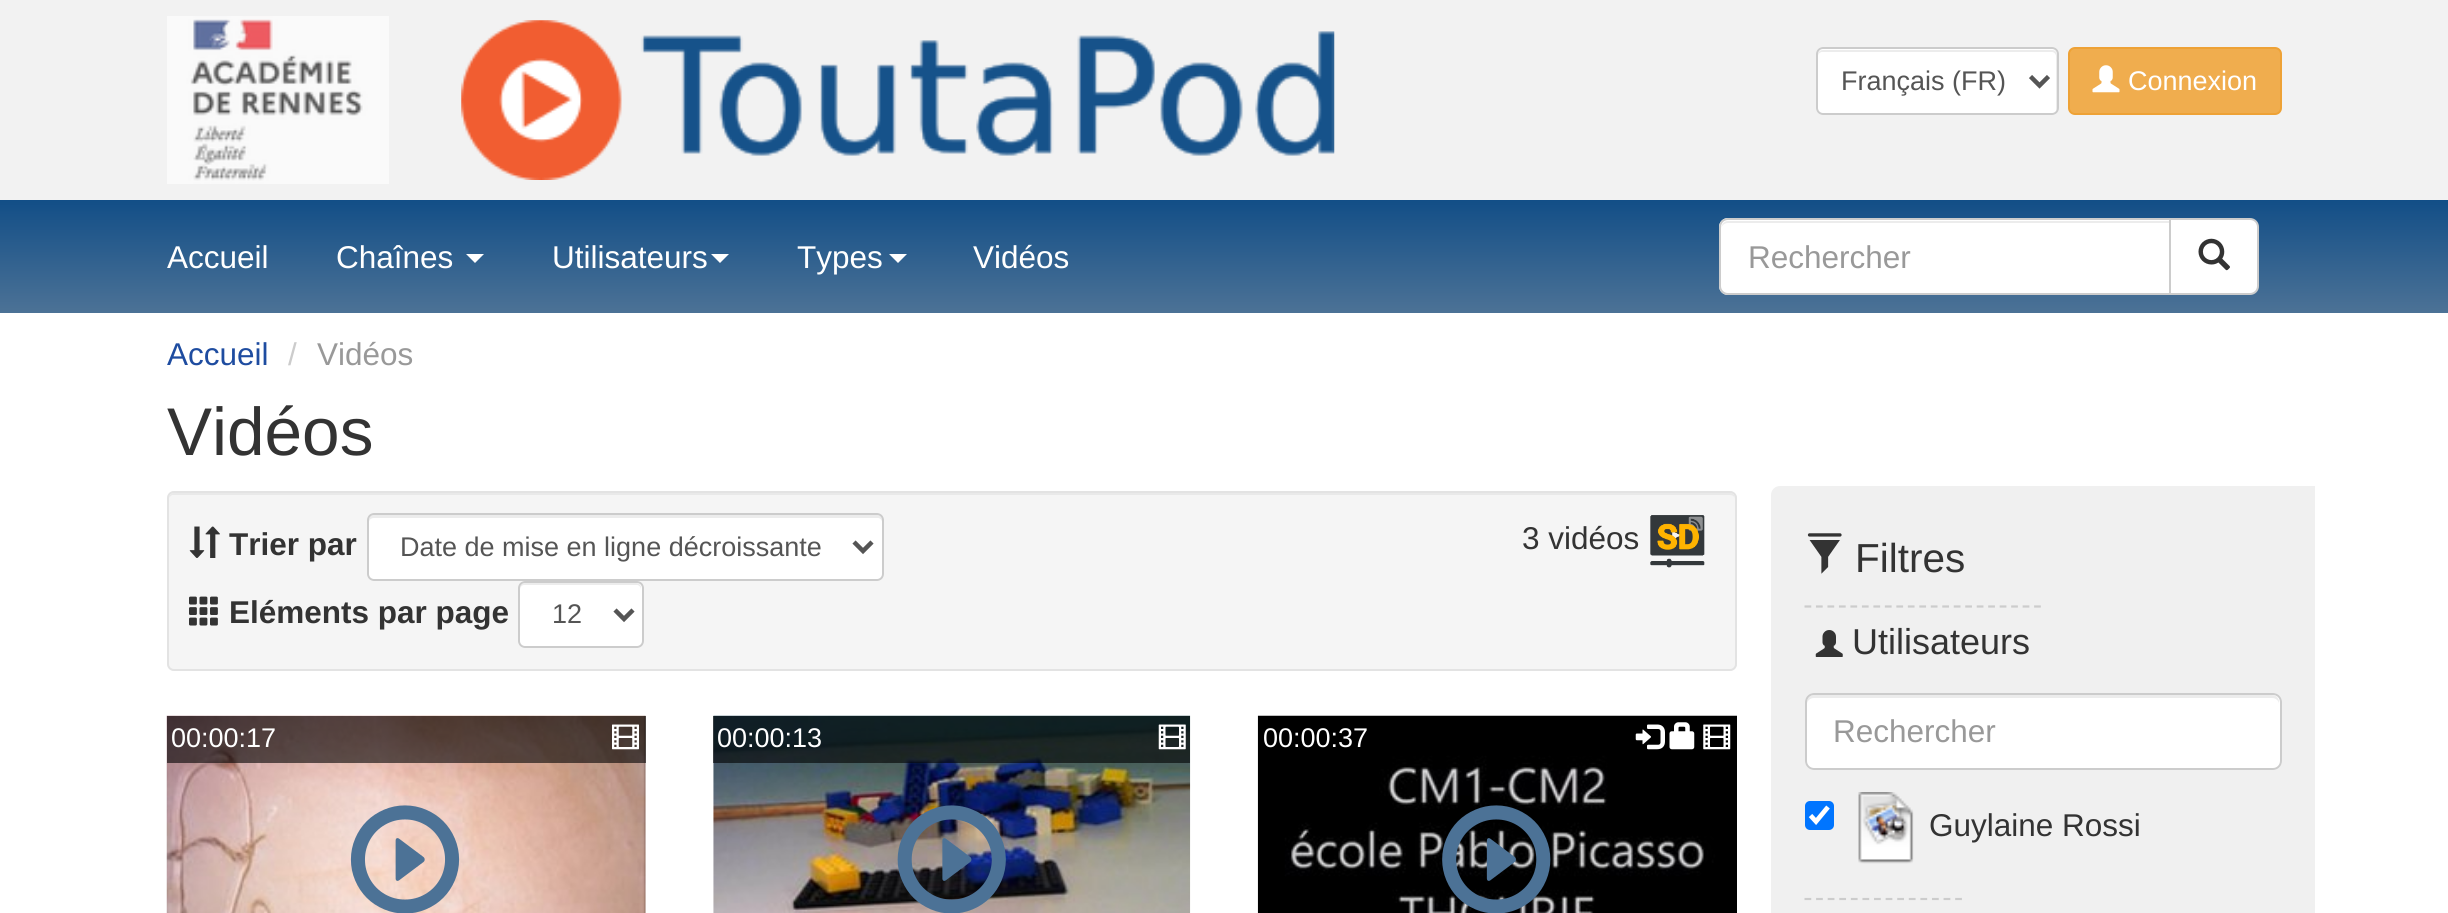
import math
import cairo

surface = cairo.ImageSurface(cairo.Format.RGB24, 2448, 913)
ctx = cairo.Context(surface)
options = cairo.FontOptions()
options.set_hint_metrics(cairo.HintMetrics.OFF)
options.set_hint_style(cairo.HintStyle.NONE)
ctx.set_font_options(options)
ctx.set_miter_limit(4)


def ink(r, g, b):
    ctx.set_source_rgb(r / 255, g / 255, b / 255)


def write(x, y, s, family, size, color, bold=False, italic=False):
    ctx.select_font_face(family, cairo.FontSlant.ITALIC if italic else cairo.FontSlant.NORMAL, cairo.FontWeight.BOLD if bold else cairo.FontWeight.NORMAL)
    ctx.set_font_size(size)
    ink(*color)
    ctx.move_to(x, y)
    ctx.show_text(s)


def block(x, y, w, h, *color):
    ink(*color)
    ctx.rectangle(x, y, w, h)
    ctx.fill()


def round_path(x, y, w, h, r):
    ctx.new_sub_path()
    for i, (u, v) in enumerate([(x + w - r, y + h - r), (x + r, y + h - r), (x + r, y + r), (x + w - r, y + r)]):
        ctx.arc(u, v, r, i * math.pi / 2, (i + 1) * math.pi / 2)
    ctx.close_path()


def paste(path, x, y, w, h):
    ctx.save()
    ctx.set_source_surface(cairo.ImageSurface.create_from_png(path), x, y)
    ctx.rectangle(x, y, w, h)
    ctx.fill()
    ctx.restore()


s1 = dict(family="Liberation Sans", size=27, color=(85, 85, 85))
s2 = dict(family="Liberation Sans", size=27, color=(255, 255, 255))
s3 = dict(family="Liberation Sans", size=31.5, color=(255, 255, 255))
s4 = dict(family="Liberation Sans", size=31.5, color=(153, 153, 153))
s5 = dict(family="Liberation Sans", size=31.5, color=(30, 76, 160))
s6 = dict(family="Liberation Sans", size=31.5, color=(204, 204, 204))
s7 = dict(family="Liberation Sans", size=67.5, color=(51, 51, 51))
s8 = dict(family="Liberation Sans", size=31.5, color=(51, 51, 51), bold=True)
s9 = dict(family="Liberation Sans", size=31.5, color=(51, 51, 51))
s10 = dict(family="Liberation Sans", size=40.5, color=(51, 51, 51))
s11 = dict(family="Liberation Sans", size=36, color=(51, 51, 51))

ink(255, 255, 255)
ctx.paint()
block(0, 0, 2448, 200, 242, 242, 242)
paste("pic1.png", 167, 16, 222, 168)
paste("pic2.png", 461, 20, 874, 160)
ink(255, 255, 255)
round_path(1816, 47, 243, 68, 7)
ctx.fill()
ink(236, 236, 236)
ctx.new_path()
ctx.move_to(1822, 52)
ctx.line_to(2052, 52)
ctx.curve_to(2054, 52, 2056, 54, 2056, 56)
ctx.line_to(2056, 111)
ctx.curve_to(2057, 110, 2057, 109, 2057, 108)
ctx.line_to(2057, 55)
ctx.curve_to(2057, 52, 2055, 50, 2052, 50)
ctx.line_to(1823, 50)
ctx.curve_to(1820, 50, 1818, 52, 1818, 55)
ctx.line_to(1818, 56)
ctx.curve_to(1818, 54, 1820, 52, 1822, 52)
ctx.close_path()
ctx.fill()
round_path(1817, 48, 241, 66, 6)
ink(204, 204, 204)
ctx.stroke()
ctx.new_path()
ctx.move_to(2030.5, 76.5)
ctx.line_to(2039.5, 85.5)
ctx.line_to(2048.5, 76.5)
ink(85, 85, 85)
ctx.set_line_width(4.5)
ctx.stroke()
write(1841, 90, "Français (FR)", **s1)
ink(240, 173, 78)
round_path(2069, 48, 212, 66, 6)
ctx.fill_preserve()
ink(238, 162, 54)
ctx.set_line_width(2)
ctx.stroke()
paste("pic3.png", 2092, 65, 28, 28)
write(2128, 90, "Connexion", **s2)
gradient = cairo.LinearGradient(1224, 200, 1224, 313)
gradient.add_color_stop_rgba(0, 0.071, 0.306, 0.529, 1)
gradient.add_color_stop_rgba(1, 0.298, 0.447, 0.588, 1)
ctx.set_source(gradient)
ctx.rectangle(0, 200, 2448, 113)
ctx.fill()
write(167, 268, "Accueil", **s3)
write(336, 268, "Chaînes", **s3)
ctx.new_path()
ctx.move_to(466, 254)
ctx.line_to(484, 254)
ctx.line_to(475, 263)
ctx.close_path()
ctx.fill()
write(552, 268, "Utilisateurs", **s3)
ctx.new_path()
ctx.move_to(711, 254)
ctx.line_to(729, 254)
ctx.line_to(720, 263)
ctx.close_path()
ctx.fill()
write(797, 268, "Types", **s3)
ctx.new_path()
ctx.move_to(889, 254)
ctx.line_to(907, 254)
ctx.line_to(898, 263)
ctx.close_path()
ctx.fill()
write(973, 268, "Vidéos", **s3)
ctx.new_path()
ctx.move_to(1728, 218)
ctx.line_to(2171, 218)
ctx.line_to(2171, 295)
ctx.line_to(1728, 295)
ctx.curve_to(1723, 295, 1719, 291, 1719, 286)
ctx.line_to(1719, 227)
ctx.curve_to(1719, 222, 1723, 218, 1728, 218)
ctx.close_path()
ctx.fill()
ink(236, 236, 236)
ctx.new_path()
ctx.move_to(1728, 223)
ctx.line_to(2169, 223)
ctx.line_to(2169, 221)
ctx.line_to(1728, 221)
ctx.curve_to(1723, 221, 1721, 226, 1721, 230)
ctx.curve_to(1721, 226, 1724, 223, 1728, 223)
ctx.close_path()
ctx.fill()
ctx.new_path()
ctx.move_to(1728, 219)
ctx.line_to(2170, 219)
ctx.line_to(2170, 294)
ctx.line_to(1728, 294)
ctx.curve_to(1723.5, 294, 1720, 290.5, 1720, 286)
ctx.line_to(1720, 227)
ctx.curve_to(1720, 222.5, 1723.5, 219, 1728, 219)
ctx.close_path()
ink(204, 204, 204)
ctx.stroke()
write(1748, 268, "Rechercher", **s4)
ink(255, 255, 255)
ctx.new_path()
ctx.move_to(2170, 219)
ctx.line_to(2250, 219)
ctx.curve_to(2254.5, 219, 2258, 222.5, 2258, 227)
ctx.line_to(2258, 286)
ctx.curve_to(2258, 290.5, 2254.5, 294, 2250, 294)
ctx.line_to(2170, 294)
ctx.close_path()
ctx.fill_preserve()
ink(204, 204, 204)
ctx.stroke()
paste("pic4.png", 2198, 238, 32, 33)
write(167, 365, "Accueil", **s5)
write(288, 365, "/", **s6)
write(317, 365, "Vidéos", **s4)
write(167, 455, "Vidéos", **s7)
ink(245, 245, 245)
round_path(167, 491, 1570, 180, 7)
ctx.fill()
ink(233, 233, 233)
ctx.new_path()
ctx.move_to(173, 495)
ctx.line_to(1730, 495)
ctx.curve_to(1733, 495, 1735, 497, 1735, 500)
ctx.curve_to(1735, 497, 1734, 493, 1730, 493)
ctx.line_to(174, 493)
ctx.curve_to(170, 493, 169, 497, 169, 500)
ctx.curve_to(169, 497, 171, 495, 173, 495)
ctx.close_path()
ctx.fill()
round_path(168, 492, 1568, 178, 6)
ink(227, 227, 227)
ctx.stroke()
paste("pic5.png", 189, 526, 31, 32)
write(229, 555, "Trier par", **s8)
ink(255, 255, 255)
round_path(367, 513, 517, 68, 7)
ctx.fill()
ink(236, 236, 236)
ctx.new_path()
ctx.move_to(374, 518)
ctx.line_to(878, 518)
ctx.curve_to(880, 518, 882, 520, 882, 522)
ctx.line_to(882, 520)
ctx.curve_to(882, 517, 880, 515, 877, 515)
ctx.line_to(374, 515)
ctx.curve_to(371, 515, 369, 517, 369, 520)
ctx.line_to(369, 522)
ctx.curve_to(369, 520, 371, 518, 374, 518)
ctx.close_path()
ctx.fill()
round_path(368, 514, 515, 66, 6)
ink(204, 204, 204)
ctx.stroke()
ctx.new_path()
ctx.move_to(854, 542)
ctx.line_to(863, 551)
ctx.line_to(872, 542)
ink(85, 85, 85)
ctx.set_line_width(4.5)
ctx.stroke()
write(400, 556, "Date de mise en ligne décroissante", **s1)
paste("pic6.png", 189, 596, 29, 30)
write(229, 623, "Eléments par page", **s8)
ink(255, 255, 255)
round_path(518, 581, 126, 67, 7)
ctx.fill()
ink(236, 236, 236)
ctx.new_path()
ctx.move_to(524, 585)
ctx.line_to(637, 585)
ctx.curve_to(639, 585, 641, 587, 641, 590)
ctx.line_to(641, 588)
ctx.curve_to(641, 585, 639, 583, 636, 583)
ctx.line_to(525, 583)
ctx.curve_to(522, 583, 520, 585, 520, 588)
ctx.line_to(520, 590)
ctx.curve_to(520, 587, 522, 585, 524, 585)
ctx.close_path()
ctx.fill()
round_path(519, 582, 124, 65, 6)
ink(204, 204, 204)
ctx.set_line_width(2)
ctx.stroke()
ctx.new_path()
ctx.move_to(615, 610)
ctx.line_to(624, 619)
ctx.line_to(633, 610)
ink(85, 85, 85)
ctx.set_line_width(4.5)
ctx.stroke()
write(552, 623, "12", **s1)
write(1522, 549, "3 vidéos", **s9)
paste("pic7.png", 1650, 515, 55, 53)
paste("pic8.png", 166, 715, 480, 198)
ctx.set_source_rgba(0, 0, 0, 0.6)
ctx.rectangle(167, 716, 479, 47)
ctx.fill()
write(171, 747, "00:00:17", **s2)
paste("pic9.png", 612, 724, 27, 26)
paste("pic10.png", 350, 805, 110, 108)
paste("pic11.png", 713, 715, 478, 198)
ctx.set_source_rgba(0, 0, 0, 0.6)
ctx.rectangle(713, 716, 477, 47)
ctx.fill()
write(717, 747, "00:00:13", **s2)
paste("pic12.png", 1158, 724, 28, 26)
paste("pic13.png", 897, 805, 109, 108)
paste("pic14.png", 1257, 715, 480, 198)
ctx.set_source_rgba(0, 0, 0, 0.6)
ctx.rectangle(1485, 759, 114, 4)
ctx.fill()
write(1263, 747, "00:00:37", **s2)
paste("pic15.png", 1635, 724, 30, 26)
paste("pic16.png", 1669, 722, 26, 28)
paste("pic17.png", 1703, 724, 28, 26)
paste("pic18.png", 1442, 805, 109, 108)
ink(240, 240, 240)
ctx.new_path()
ctx.move_to(1780, 486)
ctx.line_to(2315, 486)
ctx.line_to(2315, 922)
ctx.line_to(1780, 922)
ctx.curve_to(1775, 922, 1771, 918, 1771, 913)
ctx.line_to(1771, 495)
ctx.curve_to(1771, 490, 1775, 486, 1780, 486)
ctx.close_path()
ctx.fill()
paste("pic19.png", 1807, 533, 35, 41)
write(1855, 572, "Filtres", **s10)
ctx.new_path()
ctx.move_to(1804.5, 606.5)
ctx.line_to(2041, 606.5)
ink(204, 204, 204)
ctx.set_line_width(2.2)
ctx.set_dash([6.75, 4.73])
ctx.stroke()
paste("pic20.png", 1815, 630, 28, 27)
write(1852, 654, "Utilisateurs", **s11)
ink(255, 255, 255)
round_path(1805, 693, 477, 77, 9)
ctx.fill()
ink(236, 236, 236)
ctx.new_path()
ctx.move_to(1814, 698)
ctx.line_to(2272, 698)
ctx.curve_to(2276, 698, 2279, 701, 2279, 704)
ctx.line_to(2279, 702)
ctx.curve_to(2279, 698, 2276, 695, 2272, 695)
ctx.line_to(1814, 695)
ctx.curve_to(1810, 695, 1807, 698, 1807, 702)
ctx.line_to(1807, 704)
ctx.curve_to(1807, 701, 1810, 698, 1814, 698)
ctx.close_path()
ctx.fill()
round_path(1806, 694, 475, 75, 8)
ink(204, 204, 204)
ctx.set_line_width(2)
ctx.set_dash([])
ctx.stroke()
write(1833, 742, "Rechercher", **s4)
ink(0, 117, 255)
round_path(1805, 801, 29, 29, 5)
ctx.fill()
ctx.new_path()
ctx.move_to(1810.5, 815.5)
ctx.line_to(1816, 821.5)
ctx.line_to(1828, 807)
ink(255, 255, 255)
ctx.set_line_width(4.7)
ctx.stroke()
paste("pic21.png", 1858, 792, 56, 72)
write(1929, 836, "Guylaine Rossi", **s9)
ctx.new_path()
ctx.move_to(1804.5, 899)
ctx.line_to(1962, 899)
ink(204, 204, 204)
ctx.set_line_width(2.2)
ctx.set_dash([6.75, 4.84])
ctx.stroke()
surface.write_to_png("screenshot.png")
